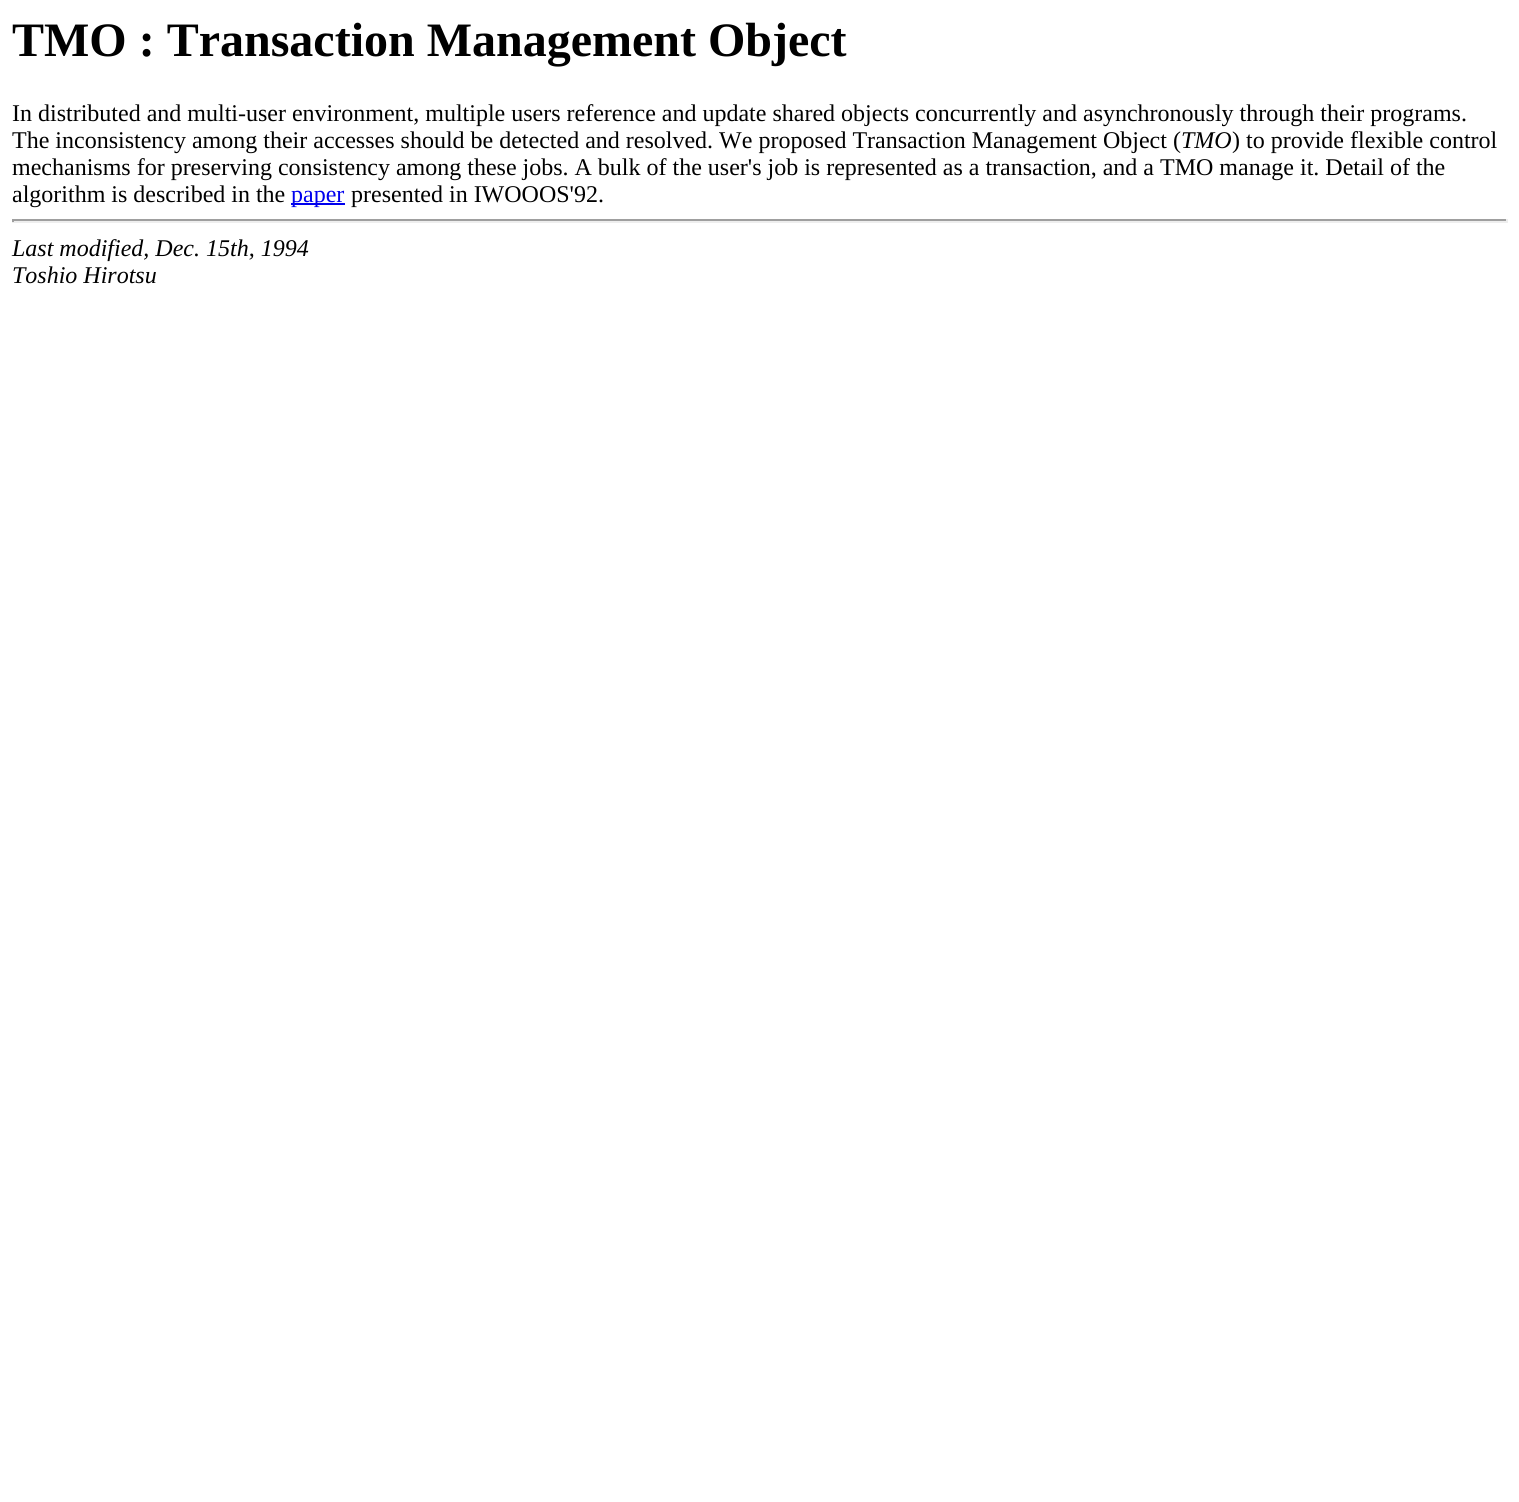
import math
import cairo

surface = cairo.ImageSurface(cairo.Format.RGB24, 1519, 1502)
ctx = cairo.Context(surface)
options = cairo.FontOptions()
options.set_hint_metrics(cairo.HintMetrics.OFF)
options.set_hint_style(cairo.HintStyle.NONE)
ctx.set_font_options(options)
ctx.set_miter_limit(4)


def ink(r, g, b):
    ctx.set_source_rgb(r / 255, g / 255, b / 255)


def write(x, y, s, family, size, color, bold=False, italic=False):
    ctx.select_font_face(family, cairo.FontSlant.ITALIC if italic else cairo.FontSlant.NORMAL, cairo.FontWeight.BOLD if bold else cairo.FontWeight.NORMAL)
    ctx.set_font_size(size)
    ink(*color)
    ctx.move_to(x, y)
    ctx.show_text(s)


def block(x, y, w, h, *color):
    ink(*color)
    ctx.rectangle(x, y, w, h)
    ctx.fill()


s1 = dict(family="Liberation Serif", size=48, color=(0, 0, 0), bold=True)
s2 = dict(family="Liberation Serif", size=24, color=(0, 0, 0))
s3 = dict(family="Liberation Serif", size=24, color=(0, 0, 0), italic=True)
s4 = dict(family="Liberation Serif", size=24, color=(0, 0, 238))

ink(255, 255, 255)
ctx.paint()
write(12, 56, "TMO : Transaction Management Object", **s1)
write(12, 121, "In distributed and multi-user environment, multiple users reference and update shared objects concurrently and asynchronously through their programs.", **s2)
write(12, 148, "The inconsistency among their accesses should be detected and resolved. We proposed Transaction Management Object (", **s2)
write(1181, 148, "TMO", **s3)
write(1232, 148, ") to provide flexible control", **s2)
write(12, 175, "mechanisms for preserving consistency among these jobs. A bulk of the user's job is represented as a transaction, and a TMO manage it. Detail of the", **s2)
write(12, 202, "algorithm is described in the", **s2)
block(291, 203, 54, 2, 0, 0, 238)
write(291, 202, "paper", **s4)
write(351, 202, "presented in IWOOOS'92.", **s2)
block(12, 219, 1496, 2, 159, 159, 159)
block(1506, 219, 2, 3, 238, 238, 238)
block(12, 221, 1496, 2, 238, 238, 238)
block(12, 219, 2, 3, 159, 159, 159)
write(12, 256, "Last modified, Dec. 15th, 1994", **s3)
write(12, 283, "Toshio Hirotsu", **s3)
surface.write_to_png("screenshot.png")
